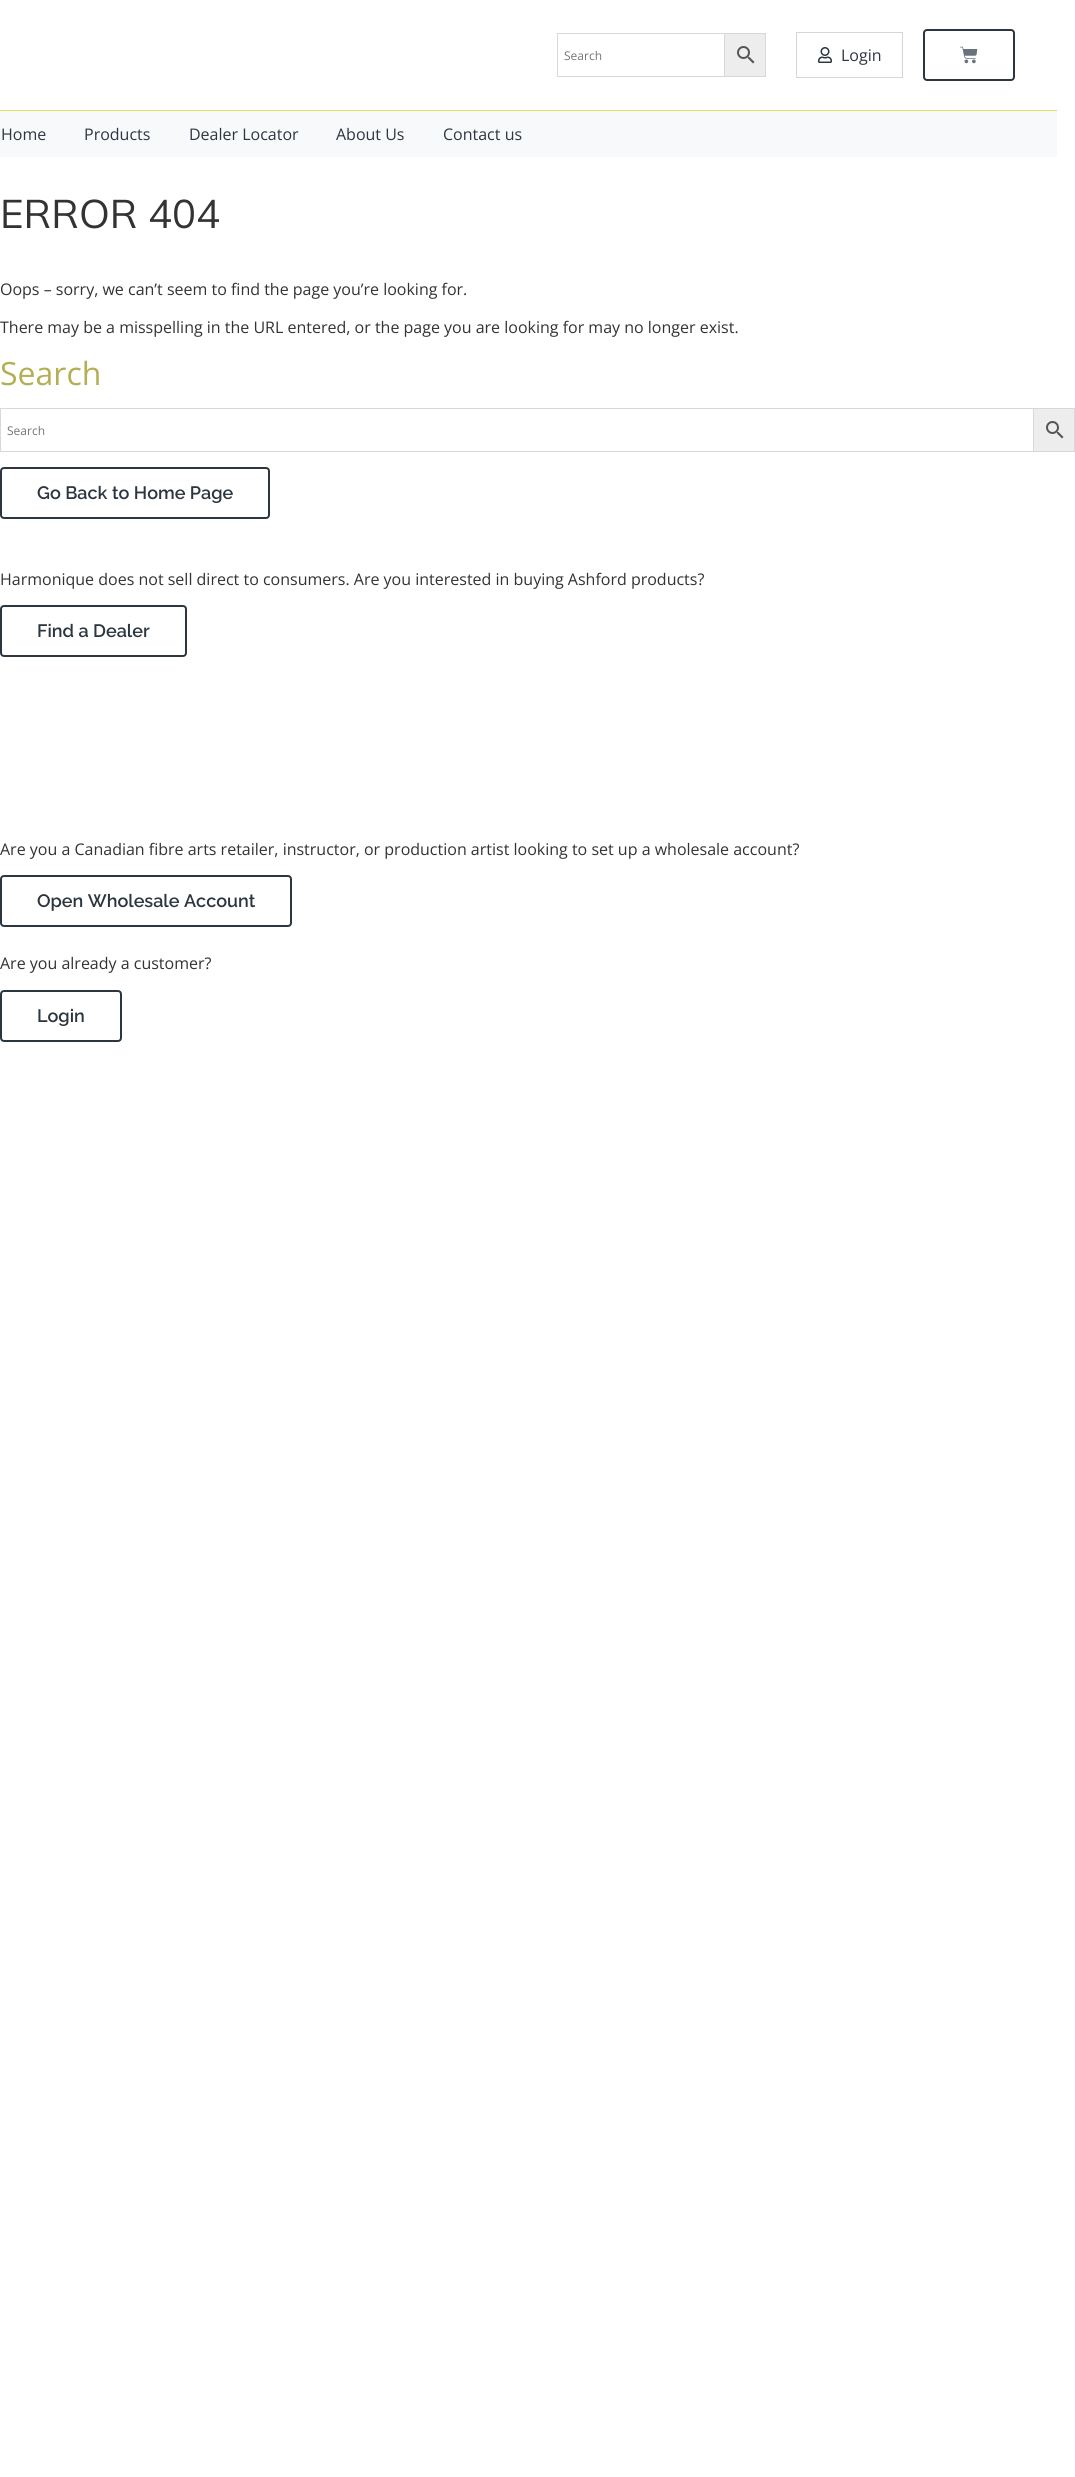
import math
import cairo

surface = cairo.ImageSurface(cairo.Format.RGB24, 1075, 2477)
ctx = cairo.Context(surface)
options = cairo.FontOptions()
options.set_hint_metrics(cairo.HintMetrics.OFF)
options.set_hint_style(cairo.HintStyle.NONE)
ctx.set_font_options(options)
ctx.set_miter_limit(4)


def ink(r, g, b):
    ctx.set_source_rgb(r / 255, g / 255, b / 255)


def write(x, y, s, family, size, color, bold=False, italic=False):
    ctx.select_font_face(family, cairo.FontSlant.ITALIC if italic else cairo.FontSlant.NORMAL, cairo.FontWeight.BOLD if bold else cairo.FontWeight.NORMAL)
    ctx.set_font_size(size)
    ink(*color)
    ctx.move_to(x, y)
    ctx.show_text(s)


def block(x, y, w, h, *color):
    ink(*color)
    ctx.rectangle(x, y, w, h)
    ctx.fill()


def round_path(x, y, w, h, r):
    ctx.new_sub_path()
    for i, (u, v) in enumerate([(x + w - r, y + h - r), (x + r, y + h - r), (x + r, y + r), (x + w - r, y + r)]):
        ctx.arc(u, v, r, i * math.pi / 2, (i + 1) * math.pi / 2)
    ctx.close_path()


def paste(path, x, y, w, h):
    ctx.save()
    ctx.set_source_surface(cairo.ImageSurface.create_from_png(path), x, y)
    ctx.rectangle(x, y, w, h)
    ctx.fill()
    ctx.restore()


s1 = dict(family="Open Sans", size=12, color=(117, 117, 117))
s2 = dict(family="Open Sans", size=16, color=(44, 54, 64))
s3 = dict(family="Mulish", size=40, color=(51, 51, 51))
s4 = dict(family="Open Sans", size=16, color=(51, 51, 51))
s5 = dict(family="Open Sans", size=32, color=(179, 175, 84))
s6 = dict(family="Raleway SemiBold", size=18, color=(44, 54, 64))

ink(255, 255, 255)
ctx.paint()
ink(237, 237, 237)
ctx.rectangle(724.5, 33.5, 41, 43)
ctx.fill_preserve()
ink(216, 216, 216)
ctx.set_line_width(1)
ctx.stroke()
ctx.rectangle(557.5, 33.5, 167, 43)
ctx.stroke()
write(564, 60, "Search", **s1)
paste("pic1.png", 737, 46, 18, 18)
ctx.rectangle(796.5, 32.5, 106, 45)
ink(214, 214, 214)
ctx.stroke()
paste("pic2.png", 818, 47, 14, 16)
write(841, 61, "Login", **s2)
round_path(924, 30, 90, 50, 3)
ctx.set_line_width(2)
ctx.stroke()
paste("pic3.png", 960, 46, 18, 18)
block(0, 111, 1057, 46, 248, 249, 250)
block(0, 110, 1057, 1, 221, 225, 101)
write(1, 140, "Home", **s2)
write(84, 140, "Products", **s2)
write(189, 140, "Dealer Locator", **s2)
write(336, 140, "About Us", **s2)
write(443, 140, "Contact us", **s2)
write(0, 228, "ERROR 404", **s3)
write(0, 295, "Oops – sorry, we can’t seem to find the page you’re looking for.", **s4)
write(0, 333, "There may be a misspelling in the URL entered, or the page you are looking for may no longer exist.", **s4)
write(0, 385, "Search", **s5)
ink(237, 237, 237)
ctx.rectangle(1033.5, 408.5, 41, 43)
ctx.fill_preserve()
ink(216, 216, 216)
ctx.set_line_width(1)
ctx.stroke()
ctx.rectangle(0.5, 408.5, 1033, 43)
ctx.stroke()
write(7, 435, "Search", **s1)
paste("pic1.png", 1046, 421, 18, 18)
round_path(1, 468, 268, 50, 3)
ink(44, 54, 64)
ctx.set_line_width(2)
ctx.stroke()
write(37, 499, "Go Back to Home Page", **s6)
write(0, 585, "Harmonique does not sell direct to consumers. Are you interested in buying Ashford products?", **s4)
round_path(1, 606, 185, 50, 3)
ink(44, 54, 64)
ctx.stroke()
write(37, 637, "Find a Dealer", **s6)
write(0, 855, "Are you a Canadian fibre arts retailer, instructor, or production artist looking to set up a wholesale account?", **s4)
round_path(1, 876, 290, 50, 3)
ink(44, 54, 64)
ctx.stroke()
write(37, 907, "Open Wholesale Account", **s6)
write(0, 969, "Are you already a customer?", **s4)
round_path(1, 991, 120, 50, 3)
ink(44, 54, 64)
ctx.stroke()
write(37, 1022, "Login", **s6)
surface.write_to_png("screenshot.png")
